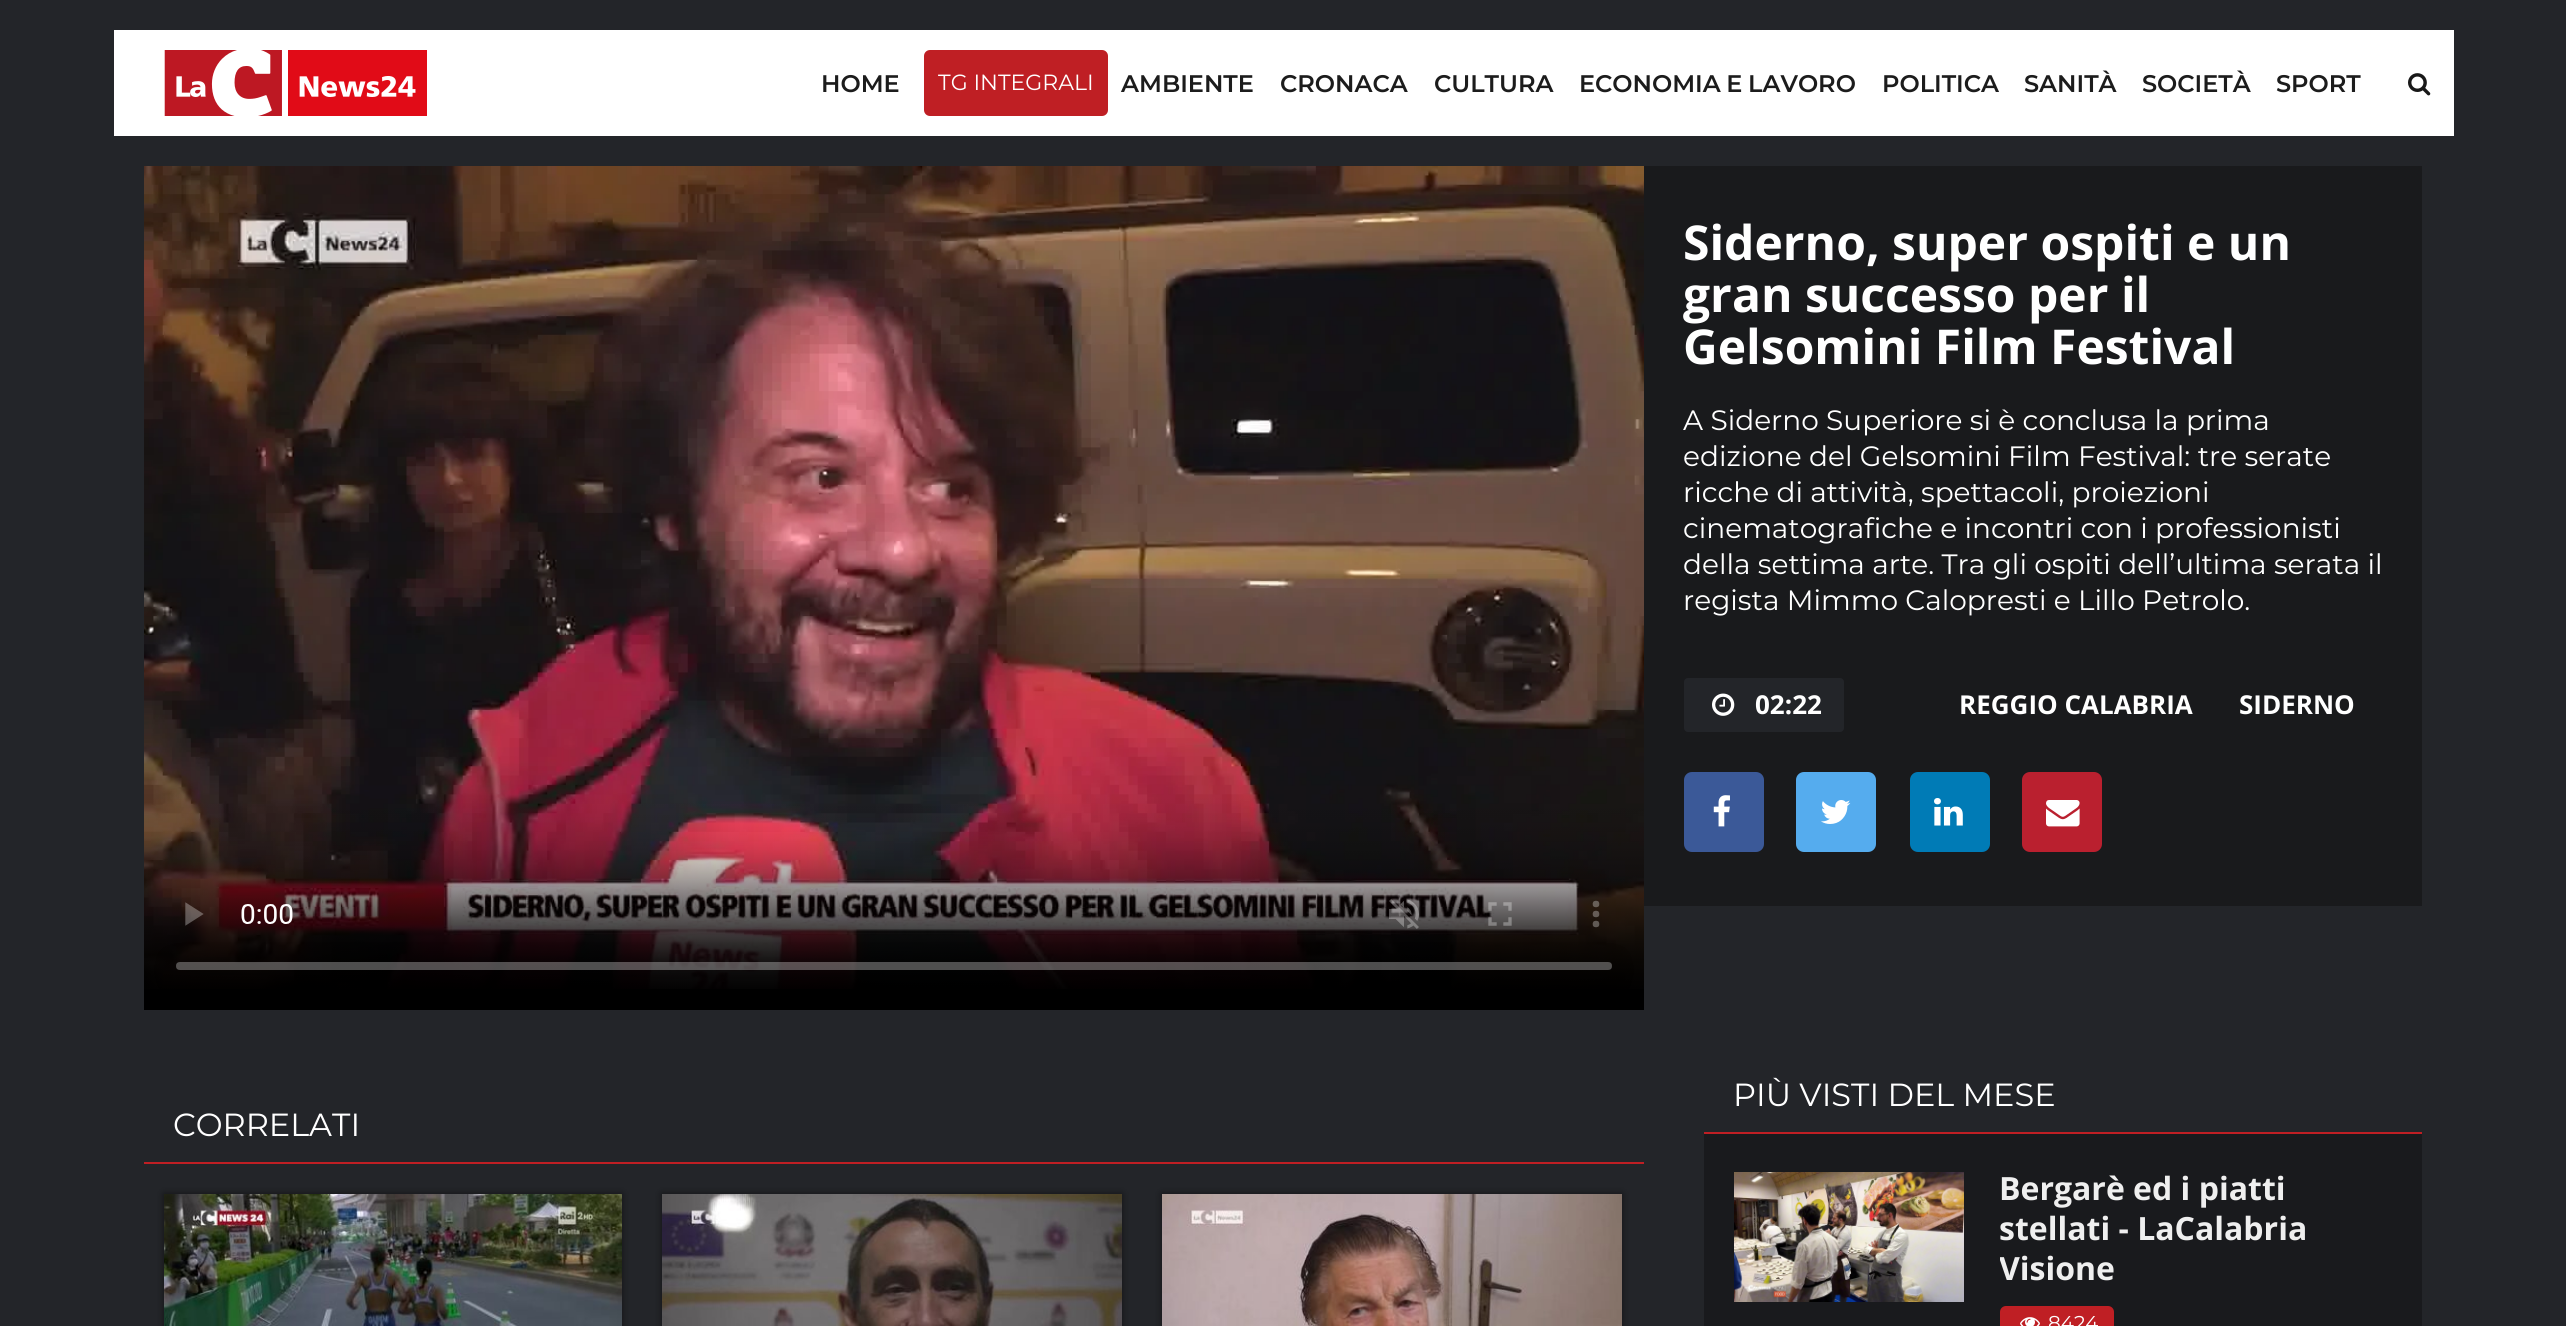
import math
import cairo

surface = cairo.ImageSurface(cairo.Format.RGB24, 2566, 1326)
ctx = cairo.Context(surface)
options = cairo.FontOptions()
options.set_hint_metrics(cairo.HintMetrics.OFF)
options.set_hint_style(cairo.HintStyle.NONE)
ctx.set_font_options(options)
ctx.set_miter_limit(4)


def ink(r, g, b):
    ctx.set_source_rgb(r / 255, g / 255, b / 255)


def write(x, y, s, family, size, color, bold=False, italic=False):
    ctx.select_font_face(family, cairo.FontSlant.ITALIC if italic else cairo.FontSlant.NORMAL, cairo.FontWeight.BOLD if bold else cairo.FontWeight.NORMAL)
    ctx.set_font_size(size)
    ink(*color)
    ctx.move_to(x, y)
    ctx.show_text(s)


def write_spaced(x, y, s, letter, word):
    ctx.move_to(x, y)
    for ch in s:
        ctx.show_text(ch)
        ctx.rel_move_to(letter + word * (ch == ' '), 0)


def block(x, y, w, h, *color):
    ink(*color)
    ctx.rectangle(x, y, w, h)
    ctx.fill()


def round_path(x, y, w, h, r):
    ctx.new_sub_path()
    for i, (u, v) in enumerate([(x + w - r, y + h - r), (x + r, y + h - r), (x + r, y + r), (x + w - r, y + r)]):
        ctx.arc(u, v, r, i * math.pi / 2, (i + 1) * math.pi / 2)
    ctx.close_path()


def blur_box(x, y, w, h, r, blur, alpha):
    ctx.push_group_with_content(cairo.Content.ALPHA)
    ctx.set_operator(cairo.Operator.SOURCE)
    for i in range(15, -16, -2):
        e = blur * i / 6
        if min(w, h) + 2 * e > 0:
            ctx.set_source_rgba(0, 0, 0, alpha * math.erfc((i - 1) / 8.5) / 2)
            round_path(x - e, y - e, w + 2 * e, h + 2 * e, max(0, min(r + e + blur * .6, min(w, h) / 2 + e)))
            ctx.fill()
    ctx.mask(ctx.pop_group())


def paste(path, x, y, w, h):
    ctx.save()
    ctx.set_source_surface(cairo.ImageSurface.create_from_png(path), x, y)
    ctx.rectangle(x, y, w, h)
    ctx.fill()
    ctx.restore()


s1 = dict(family="Montserrat SemiBold", size=24, color=(28, 28, 28))
s2 = dict(family="Montserrat", size=22, color=(255, 255, 255))
s3 = dict(family="Open Sans", size=48, color=(255, 255, 255), bold=True)
s4 = dict(family="Montserrat", size=28, color=(255, 255, 255))
s5 = dict(family="Open Sans", size=26, color=(255, 255, 255), bold=True)
s6 = dict(family="Montserrat", size=32, color=(255, 255, 255))
s7 = dict(family="Open Sans", size=32, color=(239, 239, 239), bold=True)
s8 = dict(family="Montserrat", size=20, color=(255, 255, 255))

ink(35, 37, 41)
ctx.paint()
block(114, 30, 2340, 106, 255, 255, 255)
paste("pic1.png", 164, 50, 263, 66)
write(821, 92, "HOME", **s1)
ink(191, 31, 36)
round_path(924, 50, 184, 66, 6)
ctx.fill()
write(938, 90, "TG INTEGRALI", **s2)
write(1121, 92, "AMBIENTE", **s1)
write(1280, 92, "CRONACA", **s1)
write(1434, 92, "CULTURA", **s1)
write_spaced(1579, 92, "ECONOMIA E LAVORO", 0, -1)
write(1882, 92, "POLITICA", **s1)
write(2024, 92, "SANITÀ", **s1)
write(2142, 92, "SOCIETÀ", **s1)
write(2276, 92, "SPORT", **s1)
paste("pic2.png", 2408, 73, 23, 23)
block(144, 989, 1500, 21, 0, 0, 0)
paste("pic3.png", 144, 166, 1500, 823)
paste("pic4.png", 241, 904, 52, 20)
block(1644, 166, 778, 740, 25, 26, 28)
write(1683, 260, "Siderno, super ospiti e un", **s3)
write(1683, 312, "gran successo per il", **s3)
write(1683, 364, "Gelsomini Film Festival", **s3)
write(1683, 430, "A Siderno Superiore si è conclusa la prima", **s4)
write(1683, 466, "edizione del Gelsomini Film Festival: tre serate", **s4)
write(1683, 502, "ricche di attività, spettacoli, proiezioni", **s4)
write(1683, 538, "cinematografiche e incontri con i professionisti", **s4)
write(1683, 574, "della settima arte. Tra gli ospiti dell’ultima serata il", **s4)
write(1683, 610, "regista Mimmo Calopresti e Lillo Petrolo.", **s4)
ink(35, 37, 41)
round_path(1685, 679, 158, 52, 3)
ctx.fill_preserve()
ctx.stroke()
paste("pic5.png", 1712, 693, 23, 23)
write(1755, 714, "02:22", **s5)
write(1959, 714, "REGGIO CALABRIA", **s5)
write(2239, 714, "SIDERNO", **s5)
ink(59, 89, 152)
round_path(1684, 772, 80, 80, 8)
ctx.fill()
paste("pic6.png", 1713, 795, 17, 32)
ink(85, 172, 238)
round_path(1796, 772, 80, 80, 8)
ctx.fill()
paste("pic7.png", 1821, 800, 30, 24)
ink(0, 123, 182)
round_path(1910, 772, 80, 80, 8)
ctx.fill()
paste("pic8.png", 1934, 798, 29, 28)
ink(186, 32, 47)
round_path(2022, 772, 80, 80, 8)
ctx.fill()
paste("pic9.png", 2046, 800, 34, 27)
block(144, 1162, 1500, 2, 191, 31, 36)
write(173, 1136, "CORRELATI", **s6)
ink(0, 0, 0)
blur_box(164, 1194, 458, 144, 0, 4, 0.5)
paste("pic10.png", 164, 1194, 458, 132)
blur_box(662, 1194, 460, 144, 0, 4, 0.5)
paste("pic11.png", 662, 1194, 460, 132)
blur_box(1162, 1194, 460, 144, 0, 4, 0.5)
paste("pic12.png", 1162, 1194, 460, 132)
block(1704, 1132, 718, 2, 191, 31, 36)
write(1733, 1106, "PIÙ VISTI DEL MESE", **s6)
block(1704, 1134, 718, 192, 25, 26, 29)
paste("pic13.png", 1734, 1172, 230, 130)
write(1999, 1200, "Bergarè ed i piatti", **s7)
write(1999, 1240, "stellati - LaCalabria", **s7)
ctx.save()
ctx.rectangle(2000, 1168, 392, 120)
ctx.clip()
write(1999, 1280, "Visione", **s7)
ctx.restore()
ink(191, 31, 36)
round_path(2000, 1306, 114, 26, 6)
ctx.fill()
paste("pic14.png", 2020, 1317, 20, 9)
write(2048, 1330, "8424", **s8)
surface.write_to_png("screenshot.png")
